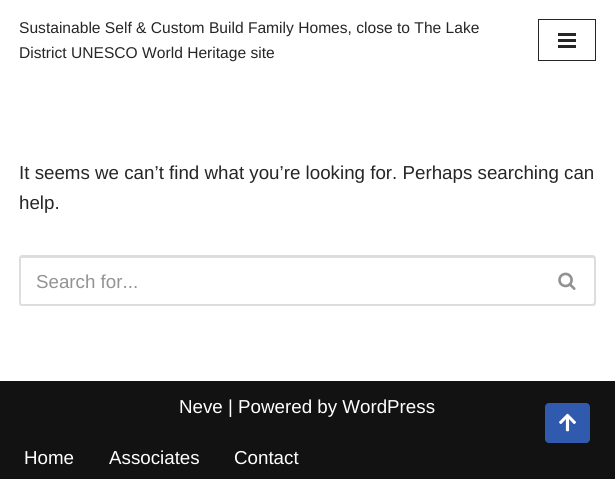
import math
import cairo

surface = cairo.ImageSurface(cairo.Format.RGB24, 615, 479)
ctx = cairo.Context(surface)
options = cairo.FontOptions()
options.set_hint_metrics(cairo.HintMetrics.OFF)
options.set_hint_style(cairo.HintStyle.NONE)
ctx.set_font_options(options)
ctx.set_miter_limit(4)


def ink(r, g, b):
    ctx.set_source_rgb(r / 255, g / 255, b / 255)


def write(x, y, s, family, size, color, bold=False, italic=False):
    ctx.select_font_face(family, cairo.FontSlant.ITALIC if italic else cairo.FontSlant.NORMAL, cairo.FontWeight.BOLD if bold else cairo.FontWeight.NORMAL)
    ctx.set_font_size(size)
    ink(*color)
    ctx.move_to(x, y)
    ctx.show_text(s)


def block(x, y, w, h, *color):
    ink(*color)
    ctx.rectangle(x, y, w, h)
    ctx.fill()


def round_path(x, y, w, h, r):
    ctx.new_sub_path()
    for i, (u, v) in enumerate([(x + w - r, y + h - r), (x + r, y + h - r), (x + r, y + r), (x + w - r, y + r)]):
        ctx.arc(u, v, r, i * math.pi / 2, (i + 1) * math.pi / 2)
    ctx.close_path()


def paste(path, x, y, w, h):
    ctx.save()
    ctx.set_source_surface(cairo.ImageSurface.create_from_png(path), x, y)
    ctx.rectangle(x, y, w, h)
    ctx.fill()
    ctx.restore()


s1 = dict(family="Liberation Sans", size=15.6, color=(39, 38, 38))
s2 = dict(family="Liberation Sans", size=18.75, color=(39, 38, 38))
s3 = dict(family="Liberation Sans", size=18.75, color=(147, 147, 147))
s4 = dict(family="Liberation Sans", size=18.75, color=(255, 255, 255))

ink(255, 255, 255)
ctx.paint()
write(19, 33, "Sustainable Self & Custom Build Family Homes, close to The Lake", **s1)
write(19, 58, "District UNESCO World Heritage site", **s1)
ctx.rectangle(538.5, 19.5, 57, 41)
ctx.set_line_width(1)
ctx.stroke()
block(558, 33, 18, 3, 39, 38, 38)
block(558, 39, 18, 3, 39, 38, 38)
block(558, 45, 18, 3, 39, 38, 38)
write(19, 179, "It seems we can’t find what you’re looking for. Perhaps searching can", **s2)
write(19, 209, "help.", **s2)
ink(221, 221, 221)
ctx.set_fill_rule(cairo.FillRule.EVEN_ODD)
ctx.new_path()
ctx.move_to(22, 255)
ctx.line_to(540, 255)
ctx.line_to(540, 306)
ctx.line_to(22, 306)
ctx.curve_to(20, 306, 19, 305, 19, 302)
ctx.line_to(19, 259)
ctx.curve_to(19, 257, 20, 255, 22, 255)
ctx.close_path()
ctx.move_to(22, 258)
ctx.line_to(540, 258)
ctx.line_to(540, 304)
ctx.line_to(22, 304)
ctx.curve_to(20, 304, 21, 298, 21, 295)
ctx.line_to(21, 258)
ctx.close_path()
ctx.fill()
write(36, 288, "Search for...", **s3)
ink(221, 221, 221)
ctx.new_path()
ctx.move_to(540, 255)
ctx.line_to(592, 255)
ctx.curve_to(595, 255, 596, 257, 596, 259)
ctx.line_to(596, 302)
ctx.curve_to(596, 305, 595, 306, 592, 306)
ctx.line_to(540, 306)
ctx.close_path()
ctx.move_to(540, 258)
ctx.line_to(592, 258)
ctx.curve_to(593, 258, 594, 258, 594, 259)
ctx.line_to(594, 302)
ctx.curve_to(594, 303, 593, 304, 592, 304)
ctx.line_to(540, 304)
ctx.close_path()
ctx.fill()
paste("pic1.png", 558, 272, 18, 18)
block(0, 381, 615, 98, 18, 18, 18)
write(179, 413, "Neve | Powered by WordPress", **s4)
write(24, 464, "Home", **s4)
write(109, 464, "Associates", **s4)
write(234, 464, "Contact", **s4)
ink(47, 90, 174)
round_path(545, 403, 45, 40, 4)
ctx.fill()
paste("pic2.png", 559, 413, 17, 19)
surface.write_to_png("screenshot.png")
